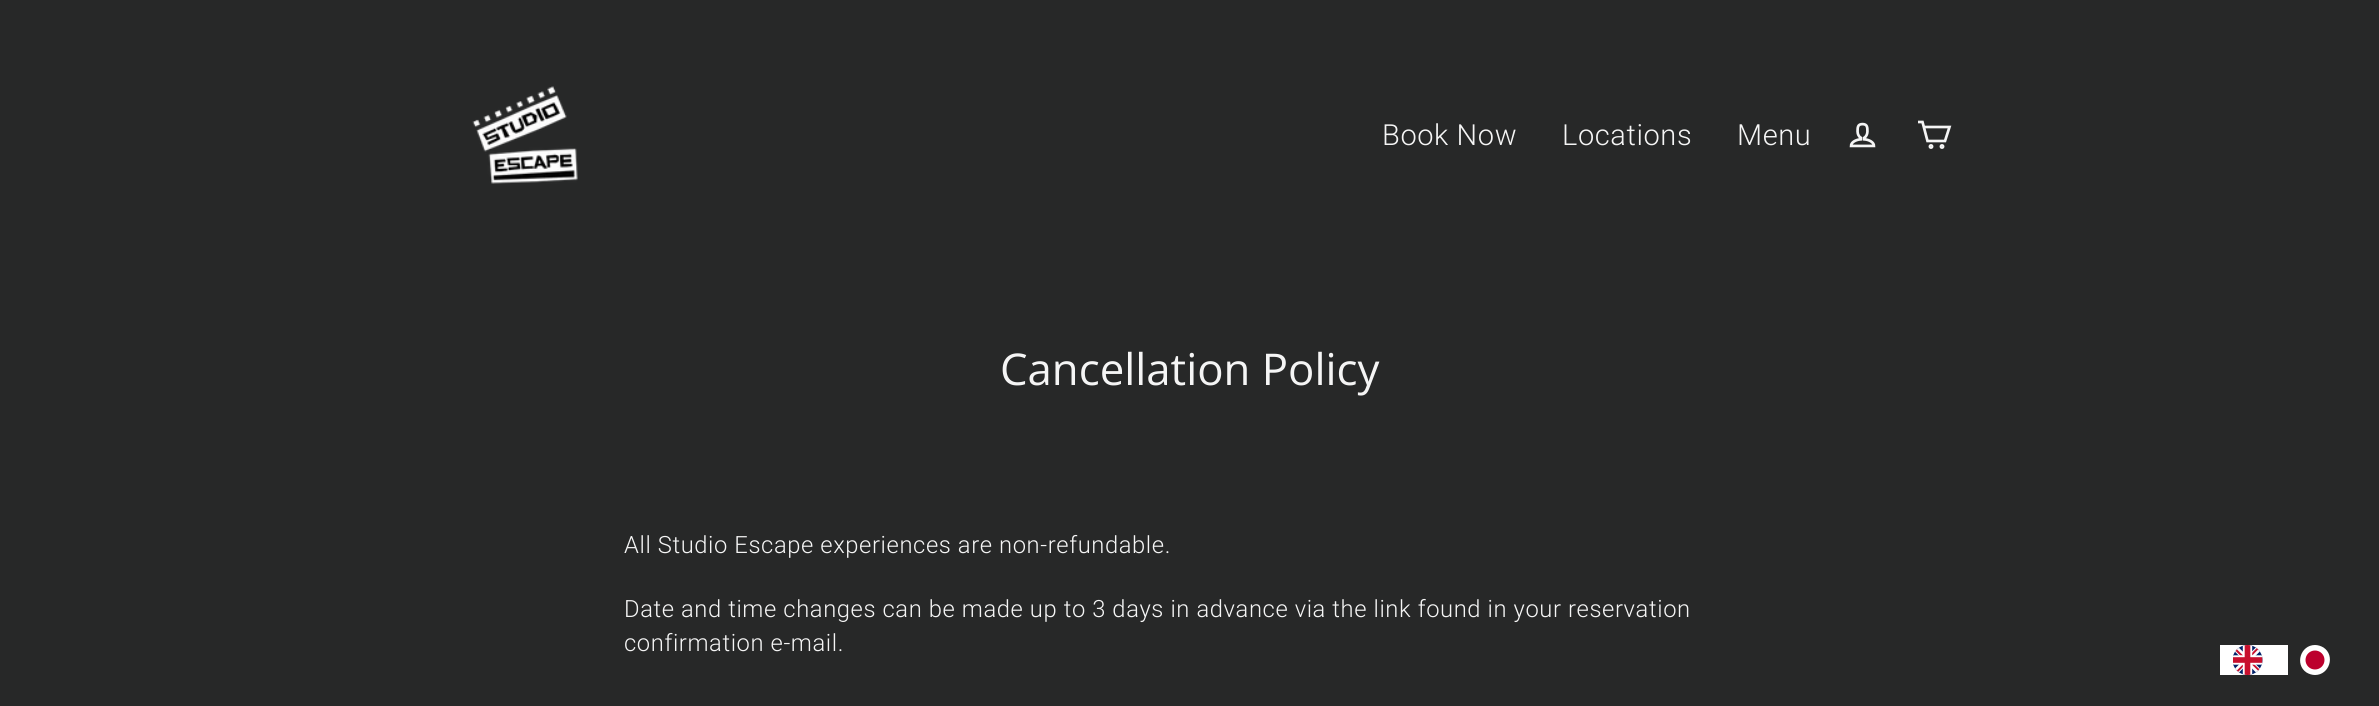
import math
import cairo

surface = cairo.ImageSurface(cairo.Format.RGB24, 2379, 706)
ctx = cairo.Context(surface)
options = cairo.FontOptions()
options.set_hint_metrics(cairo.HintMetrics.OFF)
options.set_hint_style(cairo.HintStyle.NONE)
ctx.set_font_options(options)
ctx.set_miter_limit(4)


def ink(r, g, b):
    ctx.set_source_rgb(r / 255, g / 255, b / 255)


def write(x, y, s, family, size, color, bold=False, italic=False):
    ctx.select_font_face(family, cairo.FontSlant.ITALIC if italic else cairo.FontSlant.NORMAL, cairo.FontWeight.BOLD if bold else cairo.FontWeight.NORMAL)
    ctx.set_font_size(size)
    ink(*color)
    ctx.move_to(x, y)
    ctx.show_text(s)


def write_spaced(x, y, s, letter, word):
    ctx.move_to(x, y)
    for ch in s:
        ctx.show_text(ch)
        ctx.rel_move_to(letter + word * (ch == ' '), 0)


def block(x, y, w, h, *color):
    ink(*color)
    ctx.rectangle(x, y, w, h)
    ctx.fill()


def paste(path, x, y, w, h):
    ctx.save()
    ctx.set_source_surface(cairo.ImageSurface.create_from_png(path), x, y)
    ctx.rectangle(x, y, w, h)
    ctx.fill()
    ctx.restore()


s1 = dict(family="Open Sans", size=43.75, color=(245, 245, 245))

ink(39, 40, 40)
ctx.paint()
paste("pic1.png", 472, 86, 106, 98)
ctx.select_font_face("Roboto Light")
ctx.set_font_size(29)
ink(245, 245, 245)
write_spaced(1382, 145, "Book Now", 0.6, 0)
write_spaced(1562, 145, "Locations", 0.6, 0)
write_spaced(1737, 145, "Menu", 0.6, 0)
paste("pic2.png", 1849, 122, 27, 26)
ctx.new_path()
ctx.move_to(1924, 127)
ctx.line_to(1949.5, 127)
ctx.line_to(1945, 141)
ctx.line_to(1927.5, 141)
ctx.line_to(1922.5, 122)
ctx.line_to(1918, 122)
ctx.set_line_width(2.7)
ctx.stroke()
ctx.arc(1931, 146.5, 1.1, 0, 2 * math.pi)
ctx.stroke()
ctx.arc(1942, 146.5, 1.1, 0, 2 * math.pi)
ctx.stroke()
write(1000, 385, "Cancellation Policy", **s1)
ctx.select_font_face("Roboto Light")
ctx.set_font_size(23.75)
write_spaced(624, 553, "All Studio Escape experiences are non-refundable.", 0.6, 0)
write_spaced(624, 617, "Date and time changes can be made up to 3 days in advance via the link found in your reservation", 0.6, 0)
write_spaced(624, 651, "confirmation e-mail.", 0.6, 0)
block(2220, 645, 68, 30, 255, 255, 255)
paste("pic3.png", 2233, 645, 30, 30)
ctx.new_path()
ctx.move_to(2315, 645)
ctx.curve_to(2300.5, 645, 2294.5, 664.5, 2306.5, 672.5)
ctx.curve_to(2309, 674, 2312, 675, 2315, 675)
ctx.curve_to(2329.5, 675, 2335.5, 655.5, 2323.5, 647.5)
ctx.curve_to(2321, 646, 2318, 645, 2315, 645)
ctx.close_path()
ctx.fill()
ink(188, 0, 45)
ctx.arc(2315, 660, 9.5, 0, 2 * math.pi)
ctx.fill()
surface.write_to_png("screenshot.png")
